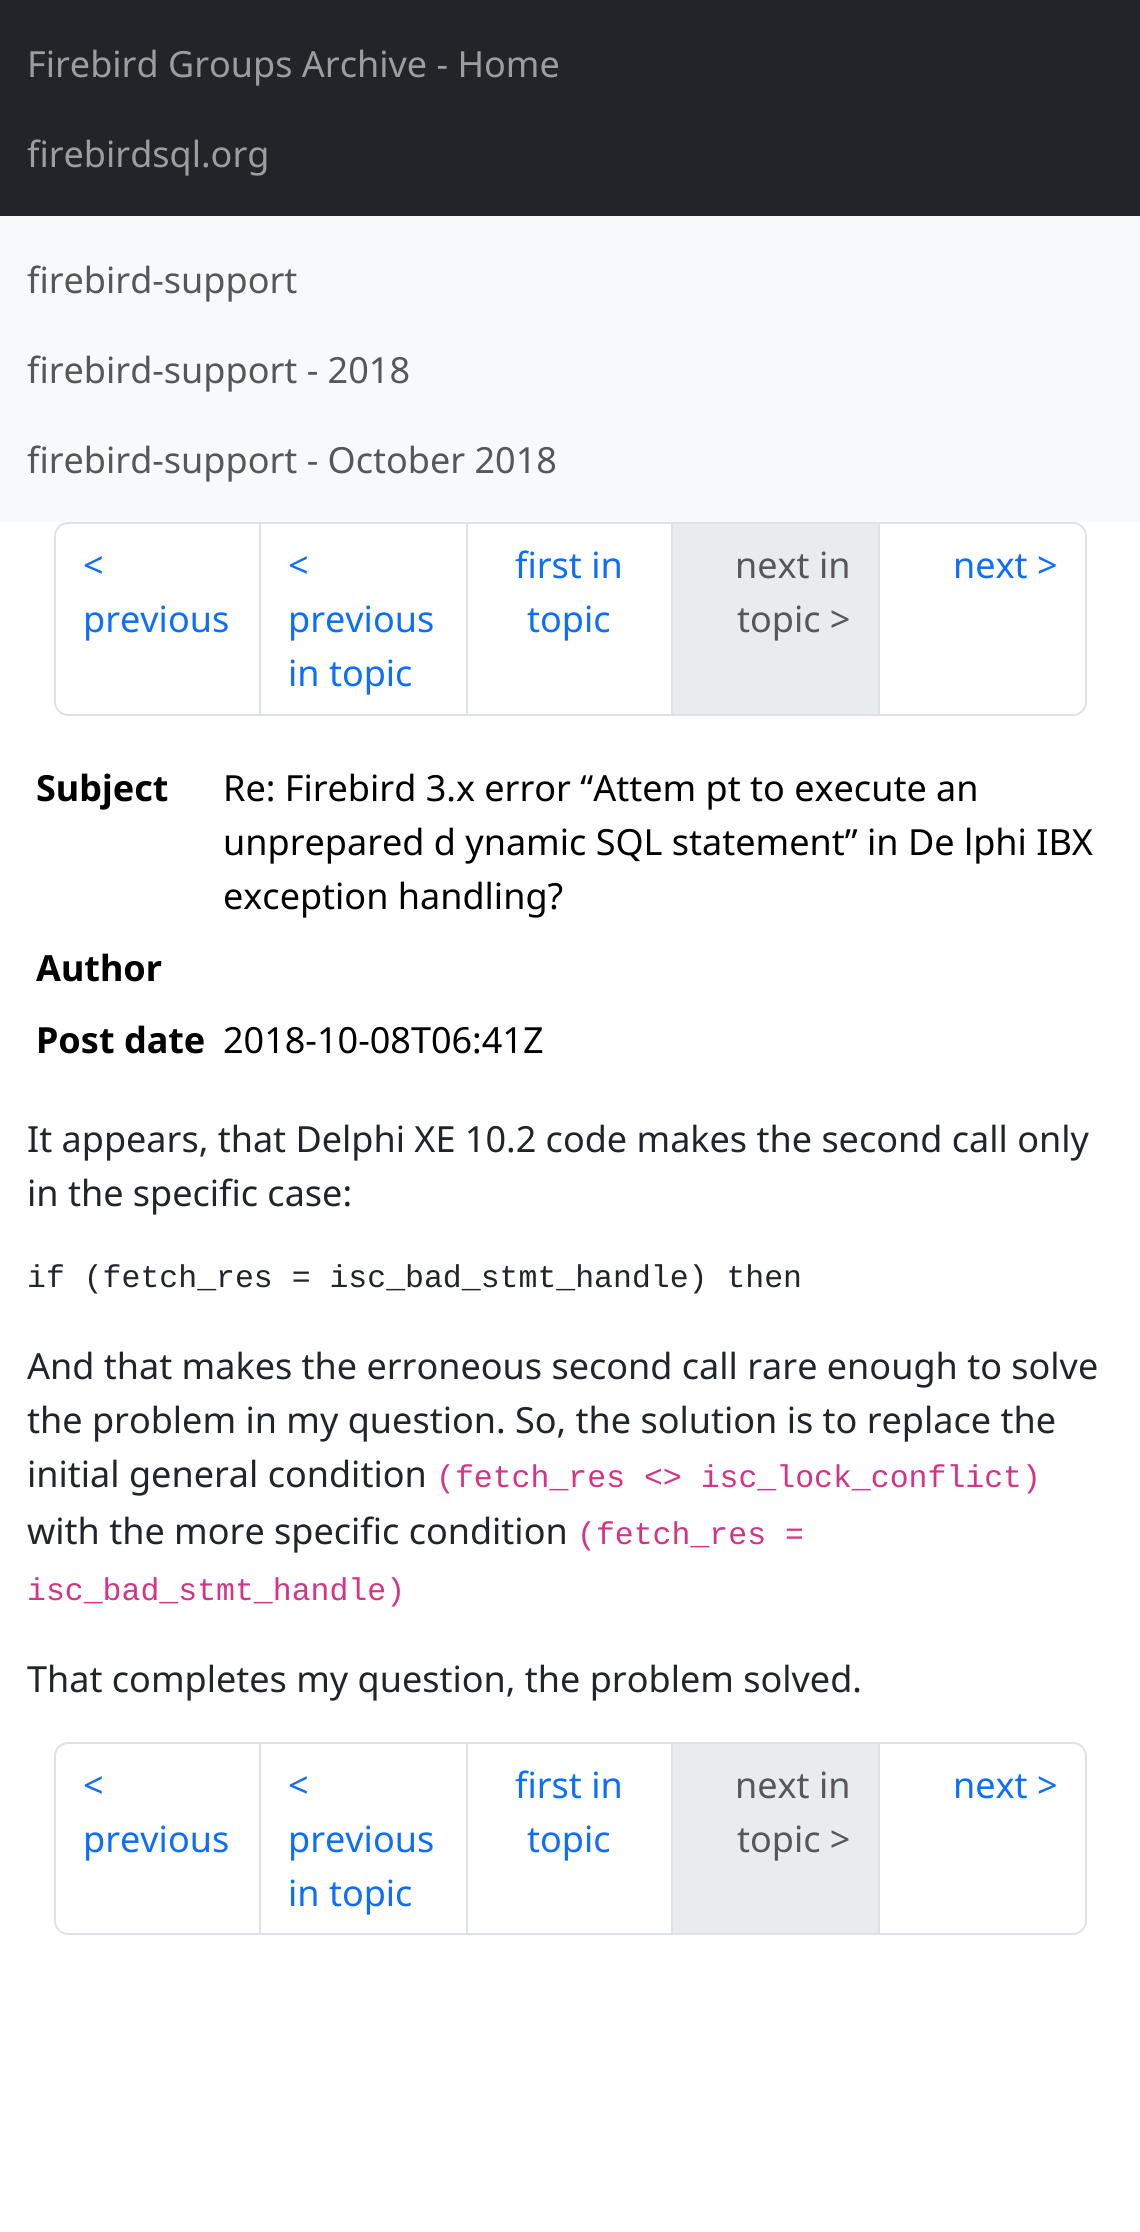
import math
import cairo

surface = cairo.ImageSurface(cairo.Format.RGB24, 1140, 2232)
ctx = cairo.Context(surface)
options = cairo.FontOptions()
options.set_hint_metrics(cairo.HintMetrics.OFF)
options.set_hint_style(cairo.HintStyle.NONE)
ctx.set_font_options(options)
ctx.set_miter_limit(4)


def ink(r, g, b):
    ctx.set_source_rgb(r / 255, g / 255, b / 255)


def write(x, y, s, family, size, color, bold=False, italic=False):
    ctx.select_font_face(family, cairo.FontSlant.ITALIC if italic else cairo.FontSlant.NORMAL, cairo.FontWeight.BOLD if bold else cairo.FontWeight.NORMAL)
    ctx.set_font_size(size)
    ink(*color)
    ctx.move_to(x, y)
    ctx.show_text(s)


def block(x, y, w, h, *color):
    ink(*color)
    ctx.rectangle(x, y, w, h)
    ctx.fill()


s1 = dict(family="Noto Sans", size=36, color=(155, 157, 159))
s2 = dict(family="Noto Sans", size=36, color=(87, 87, 88))
s3 = dict(family="Noto Sans", size=36, color=(13, 110, 253))
s4 = dict(family="Noto Sans", size=36, color=(0, 0, 0), bold=True)
s5 = dict(family="Noto Sans", size=36, color=(0, 0, 0))
s6 = dict(family="Noto Sans", size=36, color=(33, 37, 41))
s7 = dict(family="Liberation Mono", size=31.5, color=(33, 37, 41))
s8 = dict(family="Liberation Mono", size=31.5, color=(214, 51, 132))

ink(255, 255, 255)
ctx.paint()
block(0, 0, 1140, 216, 33, 37, 41)
write(27, 77, "Firebird Groups Archive - Home", **s1)
write(27, 167, "firebirdsql.org", **s1)
block(0, 216, 1140, 306, 248, 249, 250)
write(27, 293, "firebird-support", **s2)
write(27, 383, "firebird-support - 2018", **s2)
write(27, 473, "firebird-support - October 2018", **s2)
ctx.new_path()
ctx.move_to(68, 523)
ctx.line_to(260, 523)
ctx.line_to(260, 715)
ctx.line_to(68, 715)
ctx.curve_to(61, 715, 55, 709, 55, 702)
ctx.line_to(55, 536)
ctx.curve_to(55, 529, 61, 523, 68, 523)
ctx.close_path()
ink(222, 226, 230)
ctx.stroke()
write(83, 578, "<", **s3)
write(83, 632, "previous", **s3)
ctx.rectangle(260, 523, 207, 192)
ink(222, 226, 230)
ctx.stroke()
write(288, 578, "<", **s3)
write(288, 632, "previous", **s3)
write(288, 686, "in topic", **s3)
ctx.rectangle(467, 523, 205, 192)
ink(222, 226, 230)
ctx.stroke()
write(515, 578, "first in", **s3)
write(527, 632, "topic", **s3)
ink(233, 236, 239)
ctx.rectangle(672, 523, 207, 192)
ctx.fill_preserve()
ink(222, 226, 230)
ctx.stroke()
write(735, 578, "next in", **s2)
write(737, 632, "topic >", **s2)
ink(255, 255, 255)
ctx.new_path()
ctx.move_to(879, 523)
ctx.line_to(1073, 523)
ctx.curve_to(1080, 523, 1086, 529, 1086, 536)
ctx.line_to(1086, 702)
ctx.curve_to(1086, 709, 1080, 715, 1073, 715)
ctx.line_to(879, 715)
ctx.close_path()
ctx.fill_preserve()
ink(222, 226, 230)
ctx.stroke()
write(953, 578, "next >", **s3)
write(36, 801, "Subject", **s4)
write(223, 801, "Re: Firebird 3.x error “Attem pt to execute an", **s5)
write(223, 855, "unprepared d ynamic SQL statement” in De lphi IBX", **s5)
write(223, 909, "exception handling?", **s5)
write(36, 981, "Author", **s4)
write(36, 1053, "Post date", **s4)
write(223, 1053, "2018-10-08T06:41Z", **s5)
write(27, 1152, "It appears, that Delphi XE 10.2 code makes the second call only", **s6)
write(27, 1206, "in the specific case:", **s6)
write(27, 1287, "if (fetch_res = isc_bad_stmt_handle) then", **s7)
write(27, 1379, "And that makes the erroneous second call rare enough to solve", **s6)
write(27, 1433, "the problem in my question. So, the solution is to replace the", **s6)
write(27, 1487, "initial general condition", **s6)
write(436, 1487, "(fetch_res <> isc_lock_conflict)", **s8)
write(27, 1544, "with the more specific condition", **s6)
write(577, 1544, "(fetch_res =", **s8)
write(27, 1600, "isc_bad_stmt_handle)", **s8)
write(27, 1692, "That completes my question, the problem solved.", **s6)
ctx.new_path()
ctx.move_to(68, 1743)
ctx.line_to(260, 1743)
ctx.line_to(260, 1934)
ctx.line_to(68, 1934)
ctx.curve_to(61, 1934, 55, 1928, 55, 1921)
ctx.line_to(55, 1756)
ctx.curve_to(55, 1749, 61, 1743, 68, 1743)
ctx.close_path()
ink(222, 226, 230)
ctx.stroke()
write(83, 1798, "<", **s3)
write(83, 1852, "previous", **s3)
ctx.rectangle(260, 1743, 207, 191)
ink(222, 226, 230)
ctx.stroke()
write(288, 1798, "<", **s3)
write(288, 1852, "previous", **s3)
write(288, 1906, "in topic", **s3)
ctx.rectangle(467, 1743, 205, 191)
ink(222, 226, 230)
ctx.stroke()
write(515, 1798, "first in", **s3)
write(527, 1852, "topic", **s3)
ink(233, 236, 239)
ctx.rectangle(672, 1743, 207, 191)
ctx.fill_preserve()
ink(222, 226, 230)
ctx.stroke()
write(735, 1798, "next in", **s2)
write(737, 1852, "topic >", **s2)
ink(255, 255, 255)
ctx.new_path()
ctx.move_to(879, 1743)
ctx.line_to(1073, 1743)
ctx.curve_to(1080, 1743, 1086, 1749, 1086, 1756)
ctx.line_to(1086, 1921)
ctx.curve_to(1086, 1928, 1080, 1934, 1073, 1934)
ctx.line_to(879, 1934)
ctx.close_path()
ctx.fill_preserve()
ink(222, 226, 230)
ctx.stroke()
write(953, 1798, "next >", **s3)
surface.write_to_png("screenshot.png")
